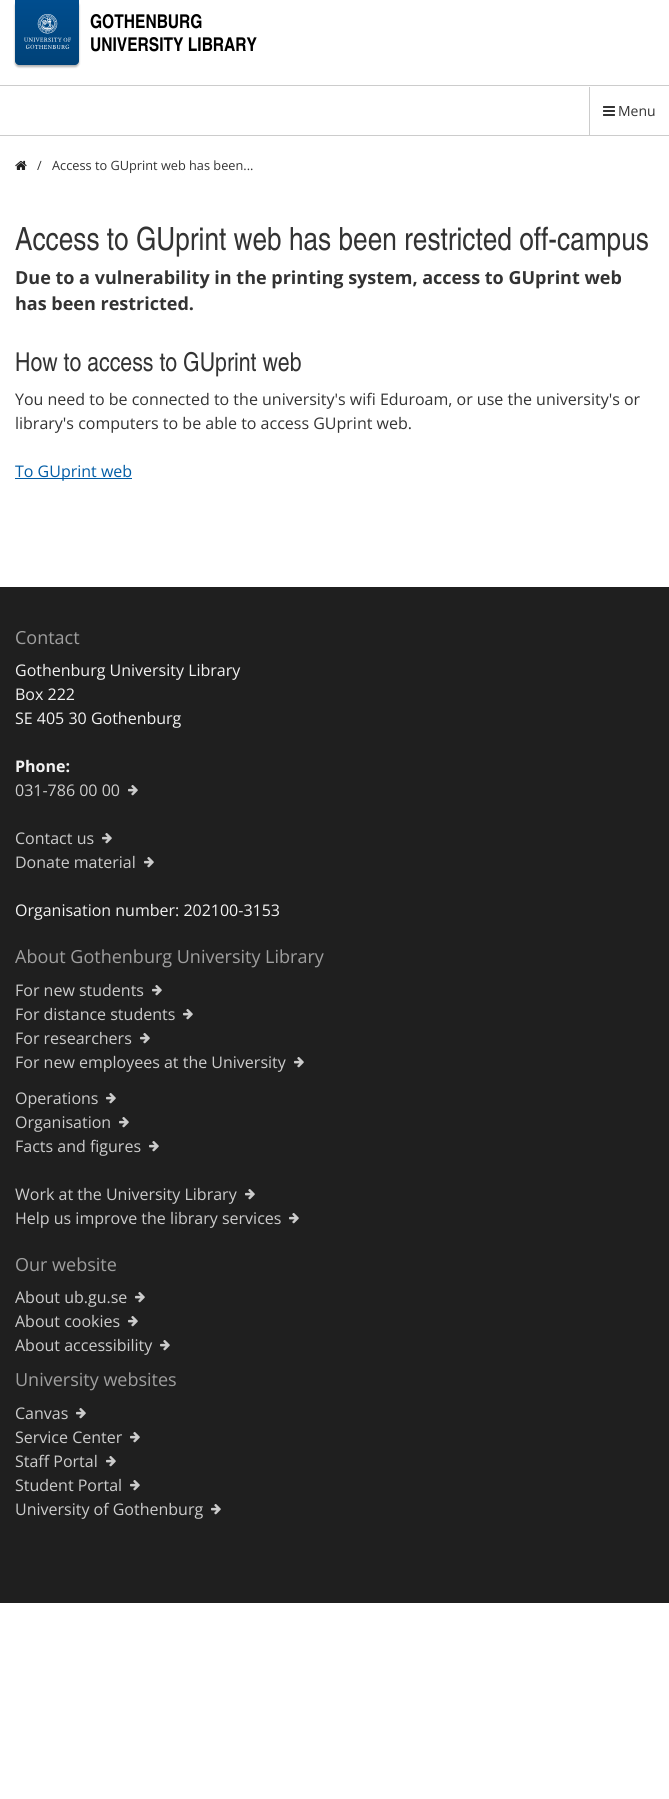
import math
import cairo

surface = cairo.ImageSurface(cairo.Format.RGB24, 669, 1799)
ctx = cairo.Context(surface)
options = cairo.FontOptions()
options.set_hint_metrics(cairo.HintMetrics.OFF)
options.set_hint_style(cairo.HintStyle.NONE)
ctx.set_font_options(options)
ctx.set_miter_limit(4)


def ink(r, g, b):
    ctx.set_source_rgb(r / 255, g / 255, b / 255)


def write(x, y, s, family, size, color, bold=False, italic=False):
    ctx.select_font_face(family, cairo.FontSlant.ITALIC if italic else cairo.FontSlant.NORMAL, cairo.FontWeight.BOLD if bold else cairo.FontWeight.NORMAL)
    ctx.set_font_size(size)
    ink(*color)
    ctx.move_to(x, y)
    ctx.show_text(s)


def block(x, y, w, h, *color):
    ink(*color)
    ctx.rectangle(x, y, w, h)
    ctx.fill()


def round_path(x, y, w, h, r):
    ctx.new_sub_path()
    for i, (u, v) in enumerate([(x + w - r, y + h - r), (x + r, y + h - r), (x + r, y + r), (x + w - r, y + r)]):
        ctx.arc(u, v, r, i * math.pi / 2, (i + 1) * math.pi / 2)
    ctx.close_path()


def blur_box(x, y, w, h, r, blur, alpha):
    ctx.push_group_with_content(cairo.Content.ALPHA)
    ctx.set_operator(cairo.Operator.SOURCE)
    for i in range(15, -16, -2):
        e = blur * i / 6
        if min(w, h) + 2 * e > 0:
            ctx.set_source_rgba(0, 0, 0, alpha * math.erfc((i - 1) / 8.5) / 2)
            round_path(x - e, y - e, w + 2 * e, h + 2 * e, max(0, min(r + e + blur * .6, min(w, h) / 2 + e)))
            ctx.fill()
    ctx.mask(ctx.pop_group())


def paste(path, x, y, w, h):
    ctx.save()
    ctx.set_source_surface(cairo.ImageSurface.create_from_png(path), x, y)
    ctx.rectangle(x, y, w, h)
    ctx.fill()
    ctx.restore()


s1 = dict(family="TeX Gyre Heros Cn", size=19, color=(0, 0, 0), bold=True)
s2 = dict(family="Open Sans", size=14, color=(51, 51, 51))
s3 = dict(family="Open Sans", size=12.75, color=(51, 51, 51))
s4 = dict(family="TeX Gyre Heros Cn", size=32, color=(51, 51, 51))
s5 = dict(family="Open Sans", size=18, color=(51, 51, 51), bold=True)
s6 = dict(family="TeX Gyre Heros Cn", size=26, color=(51, 51, 51))
s7 = dict(family="Open Sans", size=16, color=(51, 51, 51))
s8 = dict(family="Open Sans", size=16, color=(2, 93, 166))
s9 = dict(family="Open Sans", size=18, color=(159, 159, 159))
s10 = dict(family="Open Sans", size=16, color=(242, 242, 242))
s11 = dict(family="Open Sans", size=16, color=(242, 242, 242), bold=True)
s12 = dict(family="Open Sans", size=16, color=(204, 204, 204))

ink(255, 255, 255)
ctx.paint()
ink(0, 0, 0)
blur_box(15, 2, 64, 65, 4, 1, 0.3)
gradient = cairo.LinearGradient(47, 0, 47, 65)
gradient.add_color_stop_rgba(0, 0, 0.302, 0.557, 1)
gradient.add_color_stop_rgba(1, 0, 0.259, 0.471, 1)
ctx.set_source(gradient)
ctx.new_path()
ctx.move_to(15, 0)
ctx.line_to(79, 0)
ctx.line_to(79, 61)
ctx.curve_to(79, 63, 77, 65, 75, 65)
ctx.line_to(19, 65)
ctx.curve_to(17, 65, 15, 63, 15, 61)
ctx.close_path()
ctx.fill()
paste("pic1.png", 24, 14, 47, 35)
write(90, 28, "GOTHENBURG", **s1)
write(90, 51, "UNIVERSITY LIBRARY", **s1)
block(0, 85, 669, 1, 204, 204, 204)
block(0, 135, 669, 1, 204, 204, 204)
block(589, 87, 1, 48, 204, 204, 204)
paste("pic2.png", 603, 106, 12, 10)
write(618, 116, "Menu", **s2)
paste("pic3.png", 15, 160, 12, 10)
write(37, 170, "/", **s3)
write(52, 170, "Access to GUprint web has been...", **s3)
write(15, 250, "Access to GUprint web has been restricted off-campus", **s4)
write(15, 284, "Due to a vulnerability in the printing system, access to GUprint web", **s5)
write(15, 310, "has been restricted.", **s5)
write(15, 371, "How to access to GUprint web", **s6)
write(15, 405, "You need to be connected to the university's wifi Eduroam, or use the university's or", **s7)
write(15, 429, "library's computers to be able to access GUprint web.", **s7)
block(15, 478, 117, 1, 2, 93, 166)
write(15, 477, "To GUprint web", **s8)
block(0, 587, 669, 1016, 31, 31, 31)
write(15, 644, "Contact", **s9)
write(15, 676, "Gothenburg University Library", **s10)
write(15, 700, "Box 222", **s10)
write(15, 724, "SE 405 30 Gothenburg", **s10)
write(15, 772, "Phone:", **s11)
write(15, 796, "031-786 00 00", **s12)
paste("pic4.png", 128, 785, 10, 11)
write(15, 844, "Contact us", **s12)
paste("pic4.png", 102, 833, 10, 11)
write(15, 868, "Donate material", **s12)
paste("pic4.png", 144, 857, 10, 11)
write(15, 916, "Organisation number: 202100-3153", **s10)
write(15, 963, "About Gothenburg University Library", **s9)
write(15, 996, "For new students", **s12)
paste("pic4.png", 152, 985, 10, 11)
write(15, 1020, "For distance students", **s12)
paste("pic4.png", 183, 1009, 10, 11)
write(15, 1044, "For researchers", **s12)
paste("pic4.png", 140, 1033, 10, 11)
write(15, 1068, "For new employees at the University", **s12)
paste("pic4.png", 294, 1057, 10, 11)
write(15, 1104, "Operations", **s12)
paste("pic4.png", 106, 1093, 10, 11)
write(15, 1128, "Organisation", **s12)
paste("pic4.png", 119, 1117, 10, 11)
write(15, 1152, "Facts and figures", **s12)
paste("pic4.png", 149, 1141, 10, 11)
write(15, 1200, "Work at the University Library", **s12)
paste("pic4.png", 245, 1189, 10, 11)
write(15, 1224, "Help us improve the library services", **s12)
paste("pic4.png", 289, 1213, 10, 11)
write(15, 1271, "Our website", **s9)
write(15, 1303, "About ub.gu.se", **s12)
paste("pic4.png", 135, 1292, 10, 11)
write(15, 1327, "About cookies", **s12)
paste("pic4.png", 128, 1316, 10, 11)
write(15, 1351, "About accessibility", **s12)
paste("pic4.png", 160, 1340, 10, 11)
write(15, 1386, "University websites", **s9)
write(15, 1419, "Canvas", **s12)
paste("pic4.png", 76, 1408, 10, 11)
write(15, 1443, "Service Center", **s12)
paste("pic4.png", 130, 1432, 10, 11)
write(15, 1467, "Staff Portal", **s12)
paste("pic4.png", 106, 1456, 10, 11)
write(15, 1491, "Student Portal", **s12)
paste("pic4.png", 130, 1480, 10, 11)
write(15, 1515, "University of Gothenburg", **s12)
paste("pic4.png", 211, 1504, 10, 11)
surface.write_to_png("screenshot.png")
